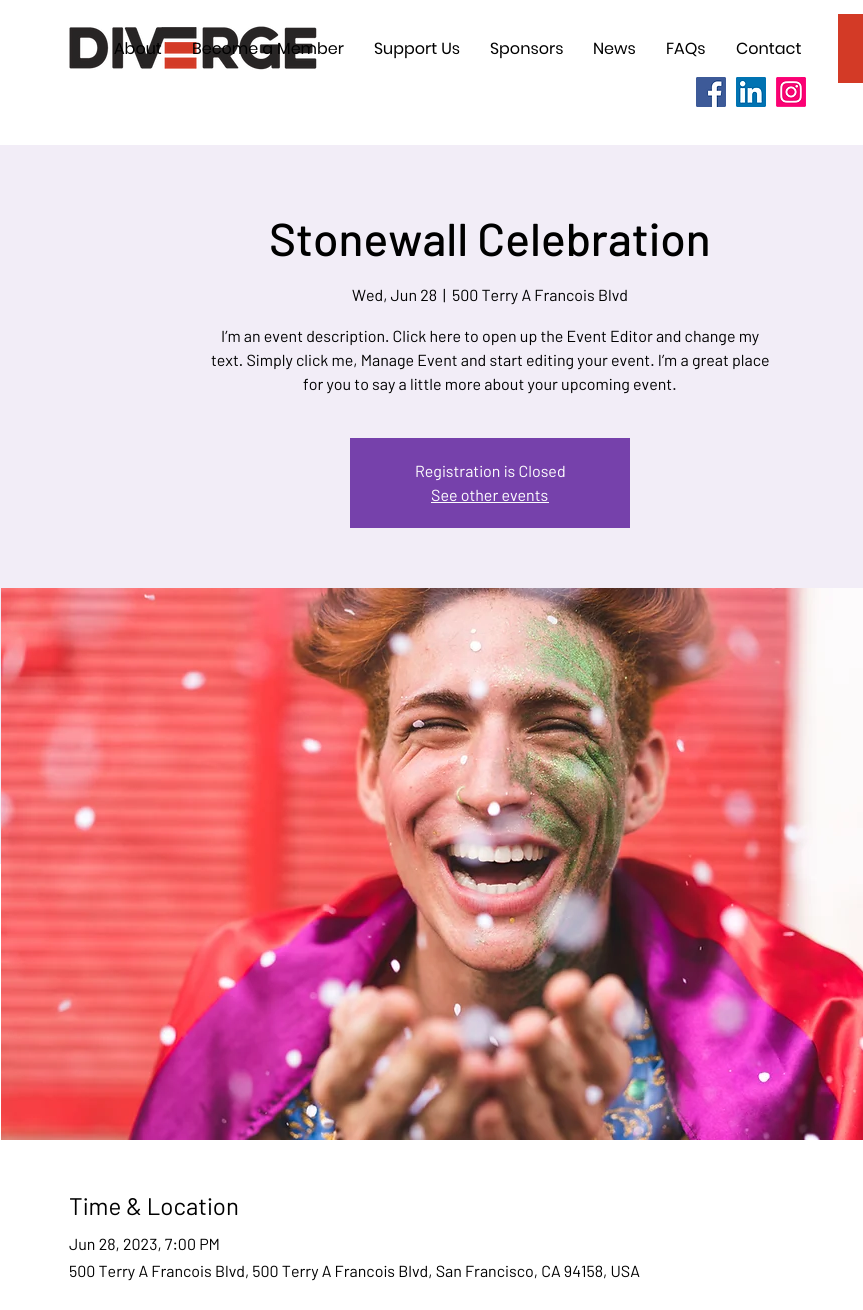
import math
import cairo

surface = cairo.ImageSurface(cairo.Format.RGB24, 863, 1310)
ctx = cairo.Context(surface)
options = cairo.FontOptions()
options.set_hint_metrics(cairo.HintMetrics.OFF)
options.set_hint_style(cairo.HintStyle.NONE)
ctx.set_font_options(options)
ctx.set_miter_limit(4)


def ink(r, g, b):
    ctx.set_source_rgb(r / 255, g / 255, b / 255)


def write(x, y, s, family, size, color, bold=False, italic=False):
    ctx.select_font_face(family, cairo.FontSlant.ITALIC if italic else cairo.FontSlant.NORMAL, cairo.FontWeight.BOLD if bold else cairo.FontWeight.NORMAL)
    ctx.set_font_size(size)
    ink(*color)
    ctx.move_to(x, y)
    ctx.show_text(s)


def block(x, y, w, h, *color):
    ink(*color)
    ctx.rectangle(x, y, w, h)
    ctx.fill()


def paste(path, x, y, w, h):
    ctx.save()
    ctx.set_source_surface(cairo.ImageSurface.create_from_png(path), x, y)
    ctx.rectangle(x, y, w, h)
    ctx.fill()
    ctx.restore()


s1 = dict(family="Poppins", size=16, color=(0, 0, 0))
s2 = dict(family="Barlow Medium", size=46, color=(0, 0, 0))
s3 = dict(family="Barlow", size=16, color=(0, 0, 0))
s4 = dict(family="Barlow", size=16, color=(255, 255, 255))
s5 = dict(family="Barlow", size=24, color=(0, 0, 0))

ink(255, 255, 255)
ctx.paint()
paste("pic1.png", 69, 26, 248, 44)
write(114, 54, "About", **s1)
write(192, 54, "Become a Member", **s1)
write(374, 54, "Support Us", **s1)
write(490, 54, "Sponsors", **s1)
write(593, 54, "News", **s1)
write(666, 54, "FAQs", **s1)
write(736, 54, "Contact", **s1)
block(838, 14, 25, 69, 211, 58, 38)
paste("pic2.png", 696, 77, 30, 30)
paste("pic3.png", 736, 77, 30, 30)
paste("pic4.png", 776, 77, 30, 30)
block(0, 145, 863, 719, 242, 237, 247)
write(269, 256, "Stonewall Celebration", **s2)
write(352, 301, "Wed, Jun 28", **s3)
write(443, 301, "|", **s3)
write(452, 301, "500 Terry A Francois Blvd", **s3)
write(221, 342, "I’m an event description. Click here to open up the Event Editor and change my", **s3)
write(211, 366, "text. Simply click me, Manage Event and start editing your event. I’m a great place", **s3)
write(303, 390, "for you to say a little more about your upcoming event.", **s3)
block(350, 438, 280, 90, 118, 65, 171)
write(415, 477, "Registration is Closed", **s4)
write(431, 501, "See other events", **s4)
block(431, 502, 118, 1, 255, 255, 255)
paste("pic5.png", 1, 588, 862, 552)
write(69, 1215, "Time & Location", **s5)
write(69, 1250, "Jun 28, 2023, 7:00 PM", **s3)
write(69, 1277, "500 Terry A Francois Blvd, 500 Terry A Francois Blvd, San Francisco, CA 94158, USA", **s3)
surface.write_to_png("screenshot.png")
